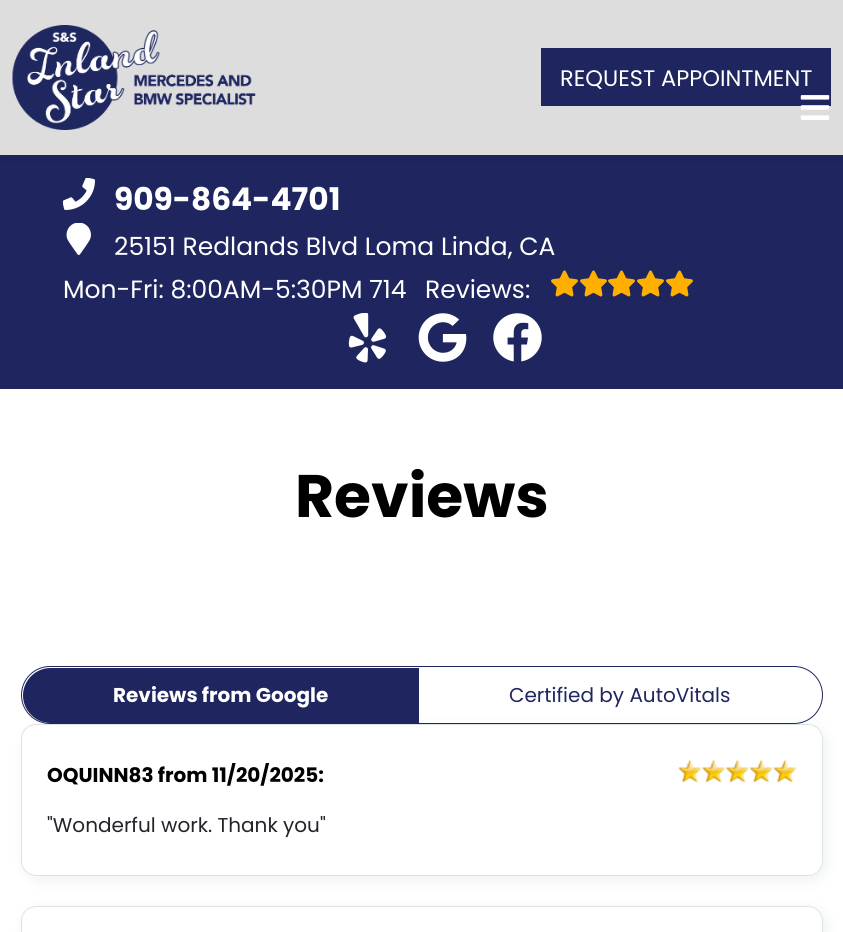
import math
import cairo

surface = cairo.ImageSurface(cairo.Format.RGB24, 843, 932)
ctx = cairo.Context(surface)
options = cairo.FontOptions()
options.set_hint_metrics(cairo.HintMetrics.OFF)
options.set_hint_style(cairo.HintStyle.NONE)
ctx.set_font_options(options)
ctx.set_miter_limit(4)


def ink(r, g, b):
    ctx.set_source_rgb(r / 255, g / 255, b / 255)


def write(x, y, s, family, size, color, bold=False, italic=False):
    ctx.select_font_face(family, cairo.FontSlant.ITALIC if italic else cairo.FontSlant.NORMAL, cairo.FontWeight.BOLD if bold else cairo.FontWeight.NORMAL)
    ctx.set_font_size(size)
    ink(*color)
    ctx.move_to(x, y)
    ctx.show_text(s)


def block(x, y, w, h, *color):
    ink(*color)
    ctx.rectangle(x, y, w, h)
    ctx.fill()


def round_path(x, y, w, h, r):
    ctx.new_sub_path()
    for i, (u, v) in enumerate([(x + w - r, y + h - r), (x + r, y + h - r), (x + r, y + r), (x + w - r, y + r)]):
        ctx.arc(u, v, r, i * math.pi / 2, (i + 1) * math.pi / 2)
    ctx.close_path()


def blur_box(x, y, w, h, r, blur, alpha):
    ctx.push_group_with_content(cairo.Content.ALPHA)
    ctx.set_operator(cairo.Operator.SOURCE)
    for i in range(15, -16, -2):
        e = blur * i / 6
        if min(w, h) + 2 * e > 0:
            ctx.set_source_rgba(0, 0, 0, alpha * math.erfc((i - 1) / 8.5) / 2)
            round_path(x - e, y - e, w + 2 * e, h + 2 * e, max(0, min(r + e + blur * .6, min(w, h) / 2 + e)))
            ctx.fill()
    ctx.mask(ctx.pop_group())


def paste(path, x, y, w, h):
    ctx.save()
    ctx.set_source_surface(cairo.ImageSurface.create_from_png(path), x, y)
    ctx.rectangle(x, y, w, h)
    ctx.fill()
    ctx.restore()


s1 = dict(family="Poppins", size=22.5, color=(255, 255, 255))
s2 = dict(family="Poppins", size=31.25, color=(255, 255, 255), bold=True)
s3 = dict(family="Poppins", size=25, color=(255, 255, 255))
s4 = dict(family="Poppins", size=60, color=(0, 0, 0), bold=True)
s5 = dict(family="Poppins", size=20, color=(255, 255, 255), bold=True)
s6 = dict(family="Poppins", size=20, color=(31, 38, 95))
s7 = dict(family="Poppins", size=20, color=(0, 0, 0), bold=True)
s8 = dict(family="Poppins", size=20, color=(33, 36, 41))

ink(255, 255, 255)
ctx.paint()
block(0, 155, 843, 234, 31, 38, 95)
ink(0, 0, 0)
blur_box(0, 4, 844, 155, 0, 6, 0.1)
block(0, 0, 843, 155, 221, 221, 221)
paste("pic1.png", 12, 25, 244, 105)
block(541, 48, 290, 58, 31, 38, 95)
write(560, 86, "REQUEST APPOINTMENT", **s1)
paste("pic2.png", 800, 95, 30, 25)
paste("pic3.png", 63, 178, 32, 32)
write(114, 210, "909-864-4701", **s2)
paste("pic4.png", 66, 223, 25, 32)
write(114, 255, "25151 Redlands Blvd Loma Linda, CA", **s3)
write(63, 298, "Mon-Fri: 8:00AM-5:30PM 714", **s3)
write(425, 298, "Reviews:", **s3)
paste("pic5.png", 551, 270, 142, 27)
paste("pic6.png", 348, 313, 39, 50)
paste("pic7.png", 418, 313, 49, 49)
paste("pic8.png", 493, 313, 49, 49)
write(295, 517, "Reviews", **s4)
ctx.save()
ctx.set_fill_rule(cairo.FillRule.EVEN_ODD)
ctx.new_path()
ctx.move_to(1, 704)
ctx.line_to(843, 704)
ctx.line_to(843, 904)
ctx.line_to(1, 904)
ctx.close_path()
ctx.move_to(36, 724)
ctx.line_to(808, 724)
ctx.curve_to(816.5, 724, 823, 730.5, 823, 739)
ctx.line_to(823, 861)
ctx.curve_to(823, 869.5, 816.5, 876, 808, 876)
ctx.line_to(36, 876)
ctx.curve_to(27.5, 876, 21, 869.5, 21, 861)
ctx.line_to(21, 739)
ctx.curve_to(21, 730.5, 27.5, 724, 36, 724)
ctx.close_path()
ctx.clip()
ink(24, 60, 89)
blur_box(25, 728, 801, 152, 15, 7.5, 0.08)
ctx.restore()
round_path(21.5, 666.5, 801, 57, 28.5)
ink(31, 38, 95)
ctx.set_line_width(1)
ctx.stroke()
ctx.new_path()
ctx.move_to(50.5, 668)
ctx.line_to(419, 668)
ctx.line_to(419, 723)
ctx.line_to(50.5, 723)
ctx.curve_to(35.5, 723, 23, 710.5, 23, 695.5)
ctx.curve_to(23, 680.5, 35.5, 668, 50.5, 668)
ctx.close_path()
ctx.fill()
write(113, 702, "Reviews from Google", **s5)
write(509, 702, "Certified by AutoVitals", **s6)
round_path(21.5, 724.5, 801, 151, 14.5)
ink(221, 226, 229)
ctx.stroke()
write(47, 782, "OQUINN83 from 11/20/2025:", **s7)
paste("pic9.png", 678, 760, 119, 23)
write(47, 832, "\"Wonderful work. Thank you\"", **s8)
ctx.save()
ctx.set_fill_rule(cairo.FillRule.EVEN_ODD)
ctx.new_path()
ctx.move_to(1, 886)
ctx.line_to(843, 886)
ctx.line_to(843, 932)
ctx.line_to(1, 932)
ctx.close_path()
ctx.move_to(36, 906)
ctx.line_to(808, 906)
ctx.curve_to(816.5, 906, 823, 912.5, 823, 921)
ctx.line_to(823, 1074)
ctx.curve_to(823, 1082.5, 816.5, 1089, 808, 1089)
ctx.line_to(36, 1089)
ctx.curve_to(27.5, 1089, 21, 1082.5, 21, 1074)
ctx.line_to(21, 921)
ctx.curve_to(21, 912.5, 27.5, 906, 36, 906)
ctx.close_path()
ctx.clip()
ink(24, 60, 89)
blur_box(25, 910, 801, 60, 15, 7.5, 0.08)
ctx.restore()
round_path(21.5, 906.5, 801, 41, 14.5)
ink(221, 226, 229)
ctx.stroke()
surface.write_to_png("screenshot.png")
